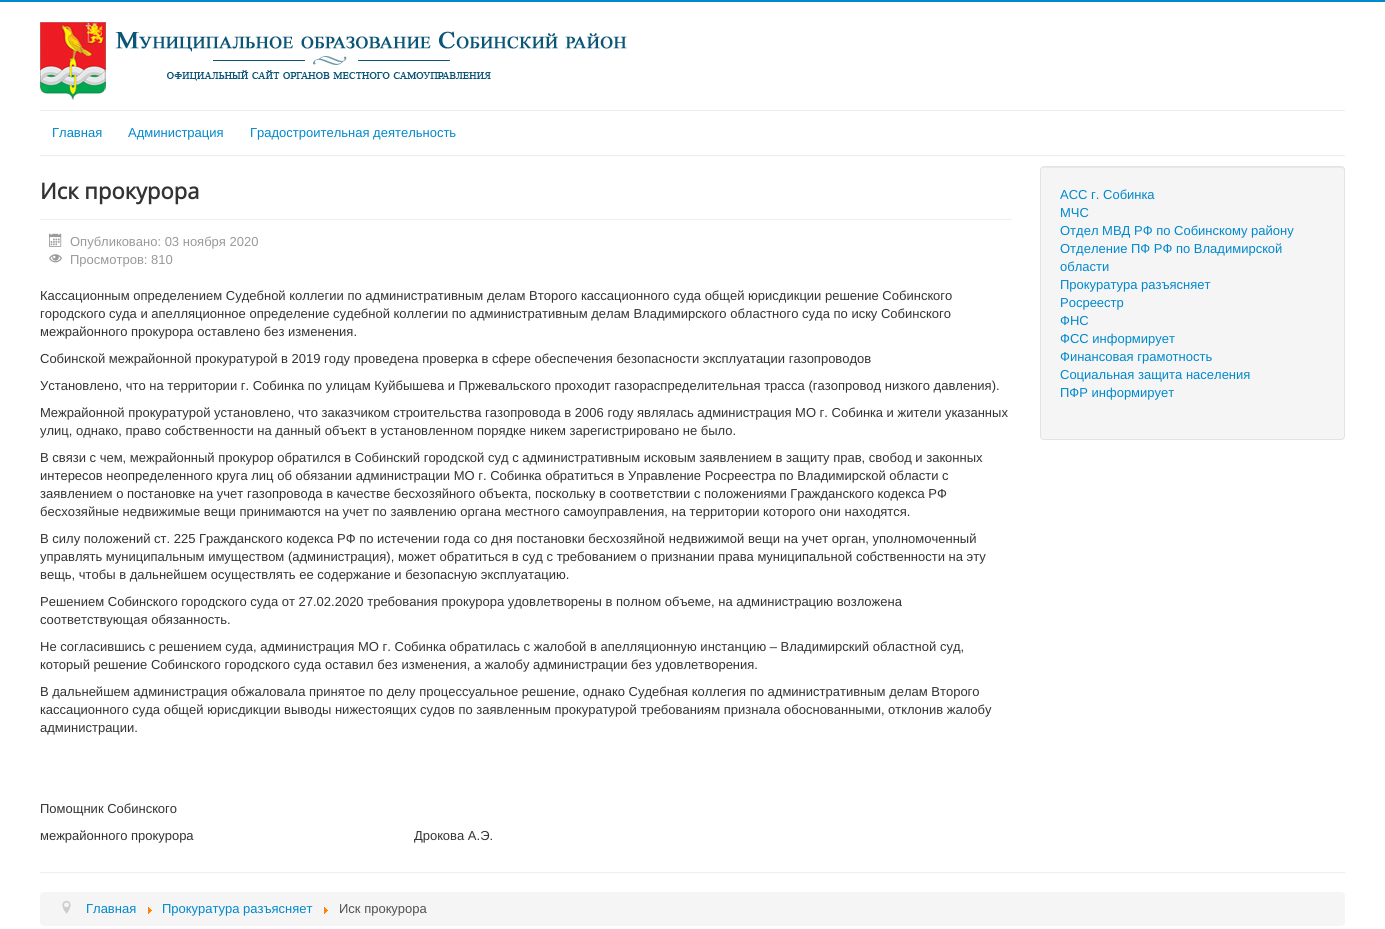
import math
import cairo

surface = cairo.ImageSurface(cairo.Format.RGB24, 1385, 929)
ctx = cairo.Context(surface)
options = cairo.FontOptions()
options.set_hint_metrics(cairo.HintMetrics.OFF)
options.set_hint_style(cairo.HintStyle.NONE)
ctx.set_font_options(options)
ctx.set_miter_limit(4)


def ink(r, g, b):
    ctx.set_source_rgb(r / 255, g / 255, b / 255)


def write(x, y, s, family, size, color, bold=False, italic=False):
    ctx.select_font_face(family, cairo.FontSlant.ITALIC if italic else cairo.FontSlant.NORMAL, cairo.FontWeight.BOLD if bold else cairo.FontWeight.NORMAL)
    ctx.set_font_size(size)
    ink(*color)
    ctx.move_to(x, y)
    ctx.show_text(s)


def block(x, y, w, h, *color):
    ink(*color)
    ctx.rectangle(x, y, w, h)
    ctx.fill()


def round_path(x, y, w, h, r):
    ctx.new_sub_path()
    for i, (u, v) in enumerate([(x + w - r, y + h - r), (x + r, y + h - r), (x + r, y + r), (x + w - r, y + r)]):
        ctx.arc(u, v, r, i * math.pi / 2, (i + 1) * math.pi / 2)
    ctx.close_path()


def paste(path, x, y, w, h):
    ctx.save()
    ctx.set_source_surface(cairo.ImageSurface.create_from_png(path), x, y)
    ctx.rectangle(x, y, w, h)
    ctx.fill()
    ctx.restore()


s1 = dict(family="Liberation Sans", size=13, color=(0, 136, 204))
s2 = dict(family="Open Sans", size=22, color=(51, 51, 51), bold=True)
s3 = dict(family="Liberation Sans", size=13, color=(153, 153, 153))
s4 = dict(family="Liberation Sans", size=13, color=(51, 51, 51))
s5 = dict(family="Liberation Sans", size=13, color=(81, 81, 81))

ink(255, 255, 255)
ctx.paint()
block(0, 0, 1385, 2, 0, 136, 204)
paste("pic1.png", 40, 22, 587, 78)
block(40, 110, 1305, 1, 236, 236, 236)
block(40, 155, 1305, 1, 236, 236, 236)
write(52, 137, "Главная", **s1)
write(128, 137, "Администрация", **s1)
write(250, 137, "Градостроительная деятельность", **s1)
block(40, 219, 972, 1, 238, 238, 238)
write(40, 199, "Иск прокурора", **s2)
paste("pic2.png", 49, 233, 13, 14)
write(70, 246, "Опубликовано: 03 ноября 2020", **s3)
paste("pic3.png", 49, 254, 13, 9)
write(70, 264, "Просмотров: 810", **s3)
write(40, 300, "Кассационным определением Судебной коллегии по административным делам Второго кассационного суда общей юрисдикции решение Собинского", **s4)
write(40, 318, "городского суда и апелляционное определение судебной коллегии по административным делам Владимирского областного суда по иску Собинского", **s4)
write(40, 336, "межрайонного прокурора оставлено без изменения.", **s4)
write(40, 363, "Собинской межрайонной прокуратурой в 2019 году проведена проверка в сфере обеспечения безопасности эксплуатации газопроводов", **s4)
write(40, 390, "Установлено, что на территории г. Собинка по улицам Куйбышева и Пржевальского проходит газораспределительная трасса (газопровод низкого давления).", **s4)
write(40, 417, "Межрайонной прокуратурой установлено, что заказчиком строительства газопровода в 2006 году являлась администрация МО г. Собинка и жители указанных", **s4)
write(40, 435, "улиц, однако, право собственности на данный объект в установленном порядке никем зарегистрировано не было.", **s4)
write(40, 462, "В связи с чем, межрайонный прокурор обратился в Собинский городской суд с административным исковым заявлением в защиту прав, свобод и законных", **s4)
write(40, 480, "интересов неопределенного круга лиц об обязании администрации МО г. Собинка обратиться в Управление Росреестра по Владимирской области с", **s4)
write(40, 498, "заявлением о постановке на учет газопровода в качестве бесхозяйного объекта, поскольку в соответствии с положениями Гражданского кодекса РФ", **s4)
write(40, 516, "бесхозяйные недвижимые вещи принимаются на учет по заявлению органа местного самоуправления, на территории которого они находятся.", **s4)
write(40, 543, "В силу положений ст. 225 Гражданского кодекса РФ по истечении года со дня постановки бесхозяйной недвижимой вещи на учет орган, уполномоченный", **s4)
write(40, 561, "управлять муниципальным имуществом (администрация), может обратиться в суд с требованием о признании права муниципальной собственности на эту", **s4)
write(40, 579, "вещь, чтобы в дальнейшем осуществлять ее содержание и безопасную эксплуатацию.", **s4)
write(40, 606, "Решением Собинского городского суда от 27.02.2020 требования прокурора удовлетворены в полном объеме, на администрацию возложена", **s4)
write(40, 624, "соответствующая обязанность.", **s4)
write(40, 651, "Не согласившись с решением суда, администрация МО г. Собинка обратилась с жалобой в апелляционную инстанцию – Владимирский областной суд,", **s4)
write(40, 669, "который решение Собинского городского суда оставил без изменения, а жалобу администрации без удовлетворения.", **s4)
write(40, 696, "В дальнейшем администрация обжаловала принятое по делу процессуальное решение, однако Судебная коллегия по административным делам Второго", **s4)
write(40, 714, "кассационного суда общей юрисдикции выводы нижестоящих судов по заявленным прокуратурой требованиям признала обоснованными, отклонив жалобу", **s4)
write(40, 732, "администрации.", **s4)
write(40, 813, "Помощник Собинского", **s4)
write(40, 840, "межрайонного прокурора                                                             Дрокова А.Э.", **s4)
ink(245, 245, 245)
round_path(1040, 166, 305, 274, 4)
ctx.fill()
ink(233, 233, 233)
ctx.new_path()
ctx.move_to(1044, 168)
ctx.line_to(1341, 168)
ctx.curve_to(1343, 168, 1344, 169, 1344, 171)
ctx.line_to(1343, 168)
ctx.line_to(1342, 167)
ctx.line_to(1044, 167)
ctx.curve_to(1042, 167, 1041, 169, 1041, 171)
ctx.curve_to(1041, 169, 1042, 168, 1044, 168)
ctx.close_path()
ctx.fill()
round_path(1040.5, 166.5, 304, 273, 3.5)
ink(227, 227, 227)
ctx.set_line_width(1)
ctx.stroke()
write(1060, 199, "АСС г. Собинка", **s1)
write(1060, 217, "МЧС", **s1)
write(1060, 235, "Отдел МВД РФ по Собинскому району", **s1)
write(1060, 253, "Отделение ПФ РФ по Владимирской", **s1)
write(1060, 271, "области", **s1)
write(1060, 289, "Прокуратура разъясняет", **s1)
write(1060, 307, "Росреестр", **s1)
write(1060, 325, "ФНС", **s1)
write(1060, 343, "ФСС информирует", **s1)
write(1060, 361, "Финансовая грамотность", **s1)
write(1060, 379, "Социальная защита населения", **s1)
write(1060, 397, "ПФР информирует", **s1)
block(40, 872, 1305, 1, 238, 238, 238)
ink(245, 245, 245)
round_path(40, 892, 1305, 34, 4)
ctx.fill()
paste("pic4.png", 62, 900, 9, 14)
write(86, 913, "Главная", **s1)
paste("pic5.png", 148, 907, 4, 7)
write(162, 913, "Прокуратура разъясняет", **s1)
paste("pic5.png", 324, 907, 4, 7)
write(339, 913, "Иск прокурора", **s5)
surface.write_to_png("screenshot.png")
